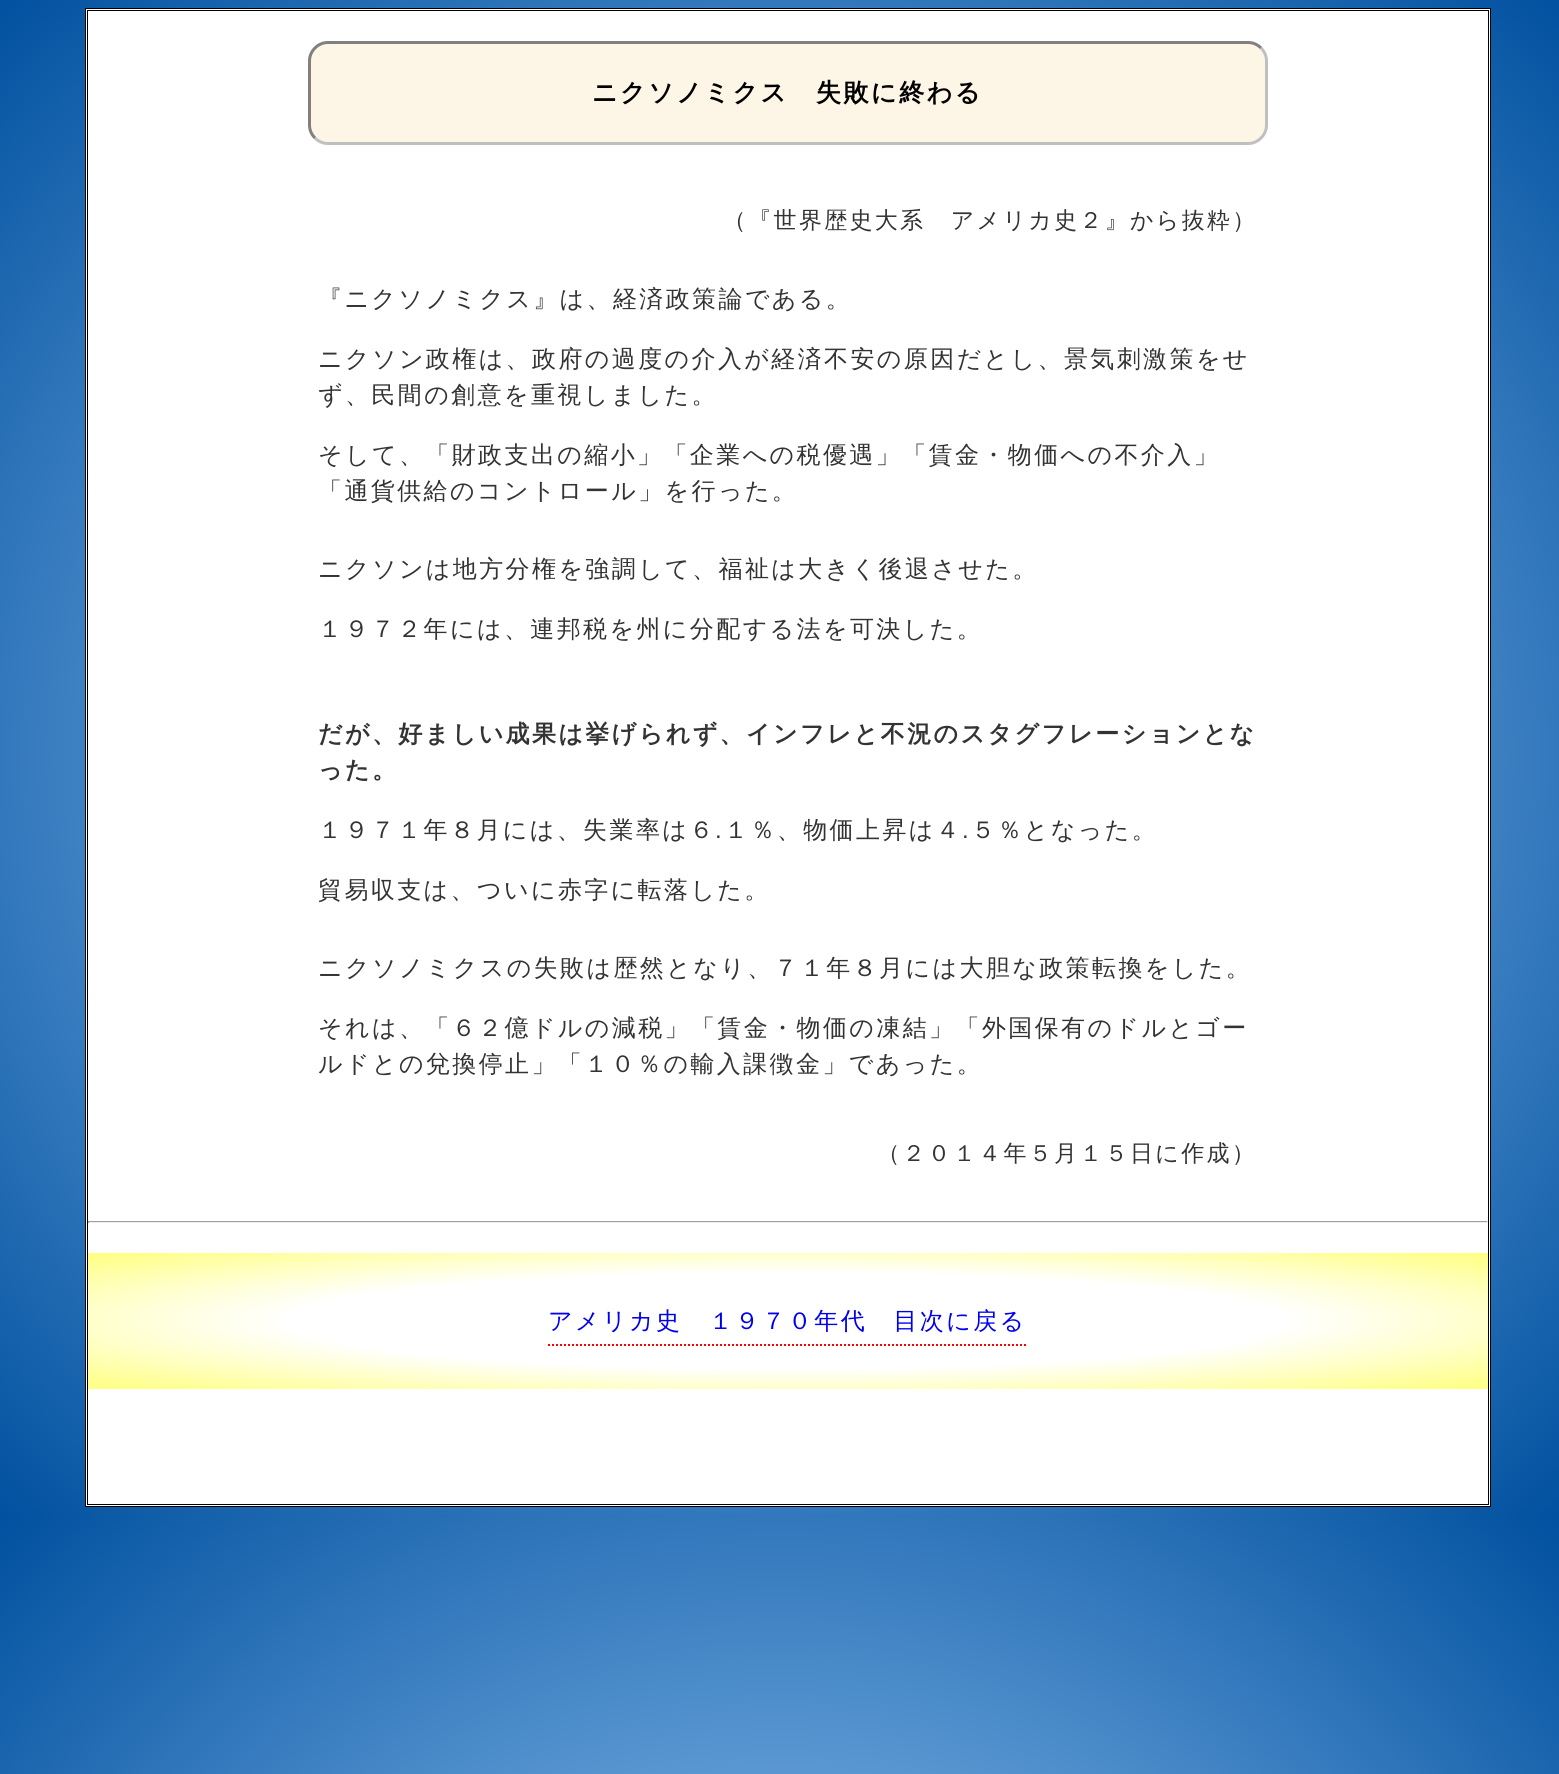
import math
import cairo

surface = cairo.ImageSurface(cairo.Format.RGB24, 1559, 1774)
ctx = cairo.Context(surface)
options = cairo.FontOptions()
options.set_hint_metrics(cairo.HintMetrics.OFF)
options.set_hint_style(cairo.HintStyle.NONE)
ctx.set_font_options(options)
ctx.set_miter_limit(4)


def ink(r, g, b):
    ctx.set_source_rgb(r / 255, g / 255, b / 255)


def write_spaced(x, y, s, letter, word):
    ctx.move_to(x, y)
    for ch in s:
        ctx.show_text(ch)
        ctx.rel_move_to(letter + word * (ch == ' '), 0)


def block(x, y, w, h, *color):
    ink(*color)
    ctx.rectangle(x, y, w, h)
    ctx.fill()


def round_path(x, y, w, h, r):
    ctx.new_sub_path()
    for i, (u, v) in enumerate([(x + w - r, y + h - r), (x + r, y + h - r), (x + r, y + r), (x + w - r, y + r)]):
        ctx.arc(u, v, r, i * math.pi / 2, (i + 1) * math.pi / 2)
    ctx.close_path()


ink(255, 255, 255)
ctx.paint()
gradient = cairo.RadialGradient(0, 0, 0, 0, 0, 1)
gradient.set_matrix(cairo.Matrix(1 / 1102, 0, 0, 1 / 1071, -1 * 780 / 1102, -1 * 758 / 1071))
gradient.add_color_stop_rgba(0, 0.663, 0.839, 1, 1)
gradient.add_color_stop_rgba(1, 0, 0.314, 0.624, 1)
ctx.set_source(gradient)
ctx.rectangle(0, 0, 1559, 1515)
ctx.fill()
gradient = cairo.RadialGradient(0, 0, 0, 0, 0, 1)
gradient.set_matrix(cairo.Matrix(1 / 1102, 0, 0, 1 / 1071, -1 * 780 / 1102, -1 * 2273 / 1071))
gradient.add_color_stop_rgba(0, 0.663, 0.839, 1, 1)
gradient.add_color_stop_rgba(1, 0, 0.314, 0.624, 1)
ctx.set_source(gradient)
ctx.rectangle(0, 1515, 1559, 259)
ctx.fill()
ink(255, 255, 255)
ctx.rectangle(85.5, 8.5, 1405, 1498)
ctx.fill_preserve()
ink(0, 0, 0)
ctx.set_line_width(1)
ctx.stroke()
ctx.rectangle(87.5, 10.5, 1401, 1494)
ctx.stroke()
ink(253, 245, 230)
round_path(308, 41, 960, 104, 20)
ctx.fill()
ctx.new_path()
ctx.move_to(1261, 48)
ctx.curve_to(1264.5, 51.5, 1266.5, 56, 1266.5, 61)
ctx.line_to(1266.5, 125)
ctx.curve_to(1266.5, 130, 1264.5, 134.5, 1261, 138)
ctx.curve_to(1257.5, 141.5, 1253, 143.5, 1248, 143.5)
ctx.line_to(328, 143.5)
ctx.curve_to(323, 143.5, 318.5, 141.5, 315, 138)
ink(192, 192, 192)
ctx.set_line_width(3)
ctx.stroke()
ctx.new_path()
ctx.move_to(315, 138)
ctx.curve_to(311.5, 134.5, 309.5, 130, 309.5, 125)
ctx.line_to(309.5, 61)
ctx.curve_to(309.5, 56, 311.5, 51.5, 315, 48)
ctx.curve_to(318.5, 44.5, 323, 42.5, 328, 42.5)
ctx.line_to(1248, 42.5)
ctx.curve_to(1253, 42.5, 1257.5, 44.5, 1261, 48)
ink(128, 128, 128)
ctx.stroke()
ctx.select_font_face("WenQuanYi Zen Hei", cairo.FontSlant.NORMAL, cairo.FontWeight.BOLD)
ctx.set_font_size(25)
ink(0, 0, 0)
write_spaced(592, 101, "ニクソノミクス　失敗に終わる", 2.5, 0)
ctx.select_font_face("WenQuanYi Zen Hei Medium")
ctx.set_font_size(23)
ink(51, 51, 51)
write_spaced(723, 228, "（『世界歴史大系　アメリカ史２』から抜粋）", 2.3, 0)
ctx.set_font_size(24)
write_spaced(318, 307, "『ニクソノミクス』は、経済政策論である。", 2.4, 0)
write_spaced(318, 367, "ニクソン政権は、政府の過度の介入が経済不安の原因だとし、景気刺激策をせ", 2.4, 0)
write_spaced(318, 403, "ず、民間の創意を重視しました。", 2.4, 0)
write_spaced(318, 463, "そして、「財政支出の縮小」「企業への税優遇」「賃金・物価への不介入」", 2.4, 0)
write_spaced(318, 499, "「通貨供給のコントロール」を行った。", 2.4, 0)
write_spaced(318, 577, "ニクソンは地方分権を強調して、福祉は大きく後退させた。", 2.4, 0)
write_spaced(318, 637, "１９７２年には、連邦税を州に分配する法を可決した。", 2.4, 0)
ctx.select_font_face("WenQuanYi Zen Hei", cairo.FontSlant.NORMAL, cairo.FontWeight.BOLD)
write_spaced(318, 742, "だが、好ましい成果は挙げられず、インフレと不況のスタグフレーションとな", 2.4, 0)
write_spaced(318, 778, "った。", 2.4, 0)
ctx.select_font_face("WenQuanYi Zen Hei Medium")
write_spaced(318, 838, "１９７１年８月には、失業率は６", 2.4, 0)
ctx.select_font_face("Liberation Sans")
write_spaced(715, 838, ".", 2.4, 0)
ctx.select_font_face("WenQuanYi Zen Hei Medium")
write_spaced(724, 838, "１％、物価上昇は４", 2.4, 0)
ctx.select_font_face("Liberation Sans")
write_spaced(962, 838, ".", 2.4, 0)
ctx.select_font_face("WenQuanYi Zen Hei Medium")
write_spaced(971, 838, "５％となった。", 2.4, 0)
write_spaced(318, 898, "貿易収支は、ついに赤字に転落した。", 2.4, 0)
write_spaced(318, 976, "ニクソノミクスの失敗は歴然となり、７１年８月には大胆な政策転換をした。", 2.4, 0)
write_spaced(318, 1036, "それは、「６２億ドルの減税」「賃金・物価の凍結」「外国保有のドルとゴー", 2.4, 0)
write_spaced(318, 1072, "ルドとの兌換停止」「１０％の輸入課徴金」であった。", 2.4, 0)
ctx.set_font_size(23)
write_spaced(877, 1161, "（２０１４年５月１５日に作成）", 2.3, 0)
block(88, 1221, 1400, 1, 159, 159, 159)
block(1487, 1221, 1, 2, 238, 238, 238)
block(88, 1222, 1400, 1, 238, 238, 238)
block(88, 1221, 1, 2, 159, 159, 159)
gradient = cairo.RadialGradient(0, 0, 0, 0, 0, 1)
gradient.set_matrix(cairo.Matrix(1 / 990, 0, 0, 1 / 96, -1 * 788 / 990, -1 * 1321 / 96))
gradient.add_color_stop_rgba(0.5, 1, 1, 1, 1)
gradient.add_color_stop_rgba(1, 1, 1, 0.502, 1)
ctx.set_source(gradient)
ctx.rectangle(88, 1253, 1400, 136)
ctx.fill()
ctx.set_font_size(24)
ink(0, 0, 238)
write_spaced(548, 1329, "アメリカ史　１９７０年代　目次に戻る", 2.4, 0)
ctx.new_path()
ctx.move_to(548, 1345)
ctx.line_to(1027, 1345)
ink(255, 0, 0)
ctx.set_line_width(2)
ctx.set_dash([2, 2])
ctx.stroke()
surface.write_to_png("screenshot.png")
